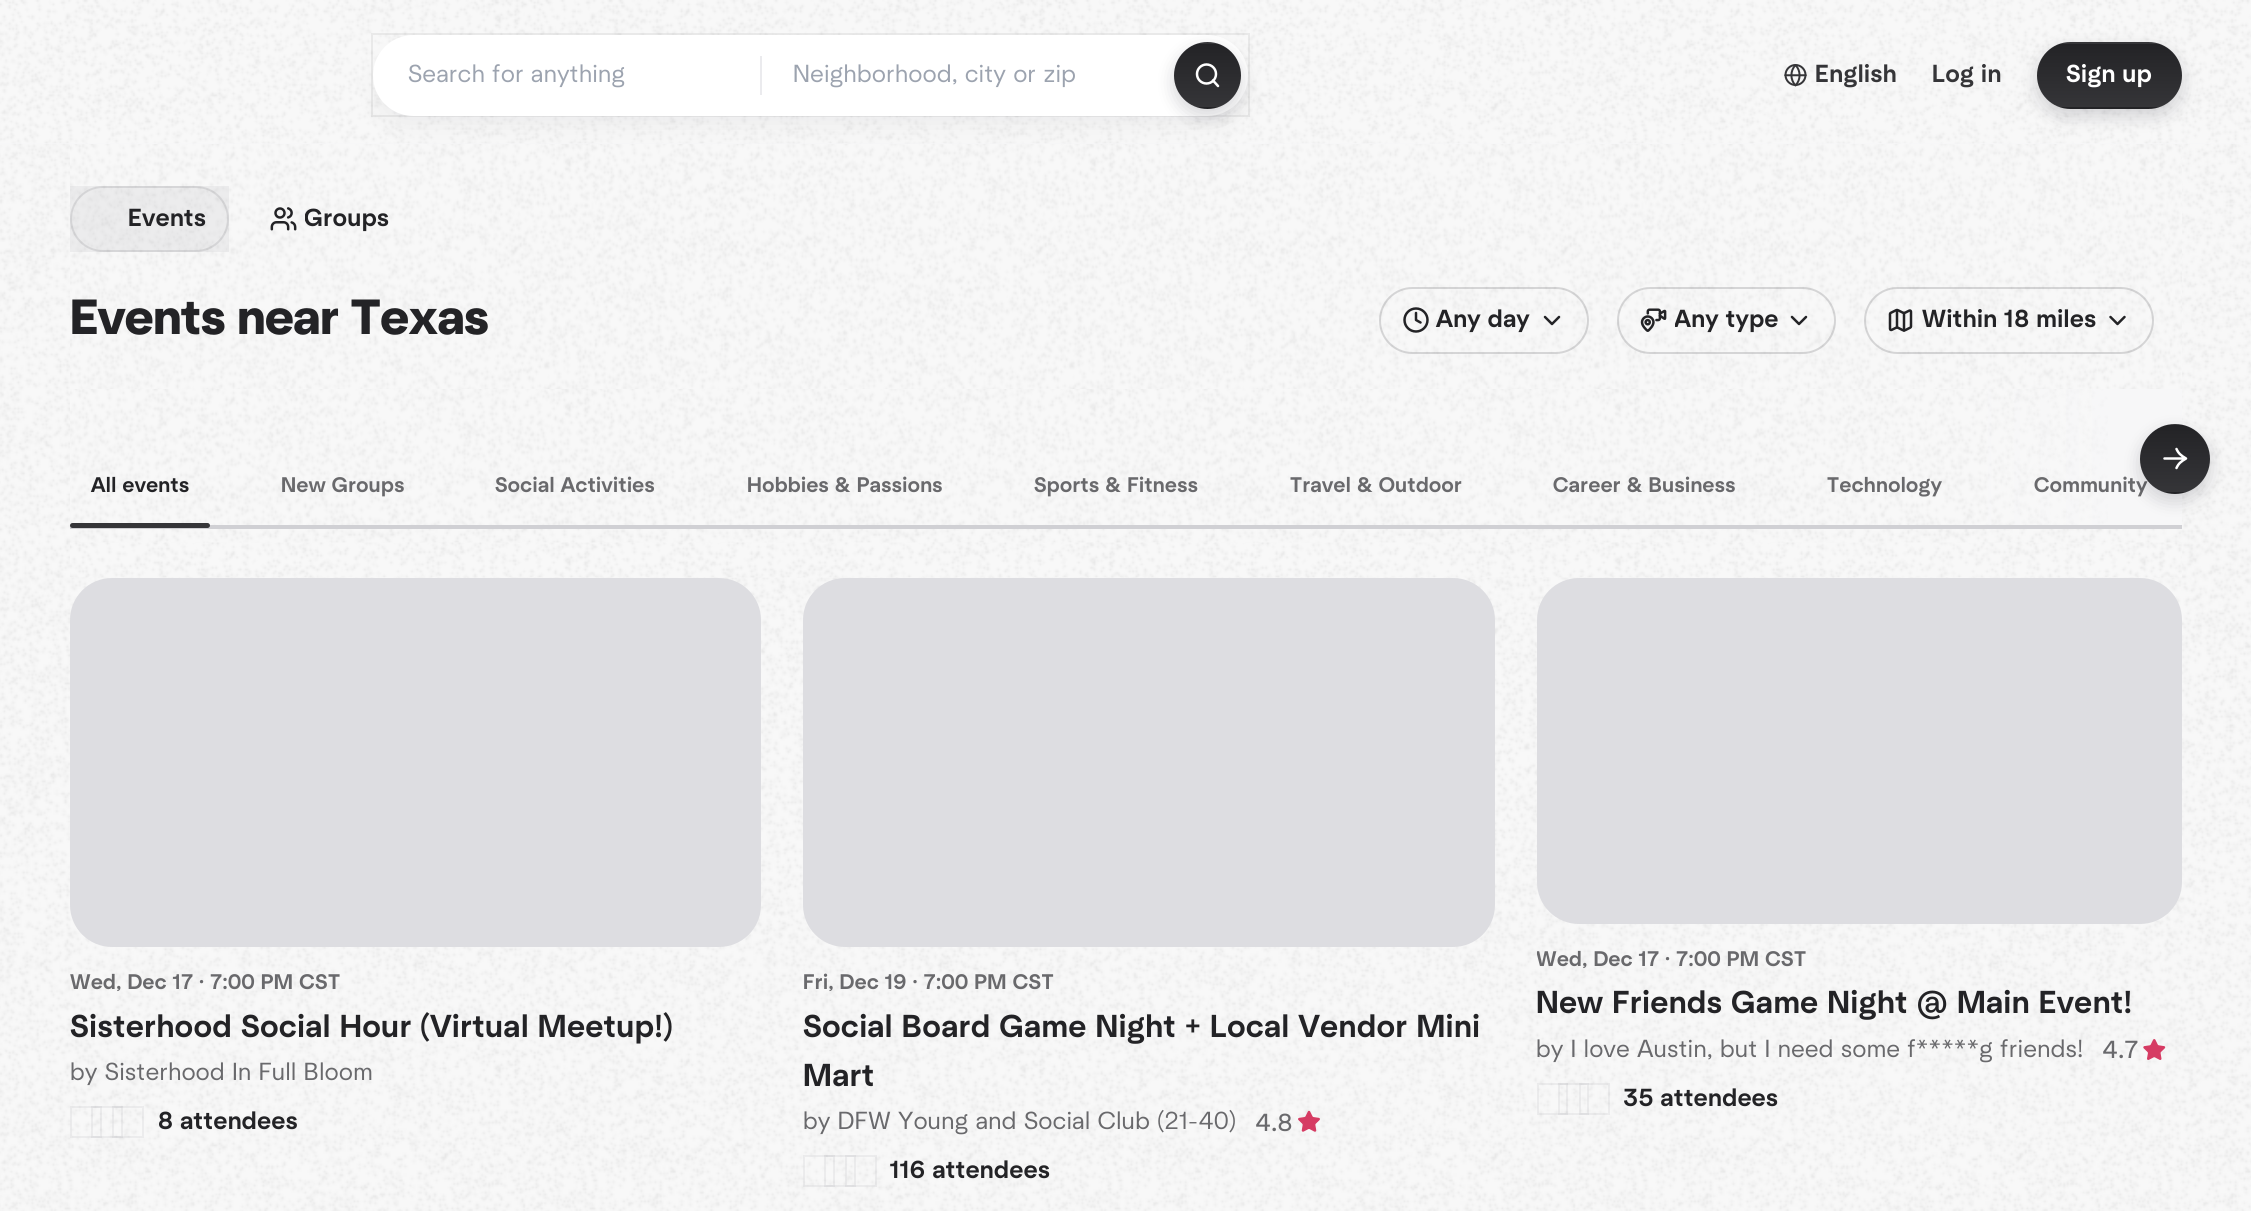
import math
import cairo

surface = cairo.ImageSurface(cairo.Format.RGB24, 2251, 1211)
ctx = cairo.Context(surface)
options = cairo.FontOptions()
options.set_hint_metrics(cairo.HintMetrics.OFF)
options.set_hint_style(cairo.HintStyle.NONE)
ctx.set_font_options(options)
ctx.set_miter_limit(4)


def ink(r, g, b):
    ctx.set_source_rgb(r / 255, g / 255, b / 255)


def write(x, y, s, family, size, color, bold=False, italic=False):
    ctx.select_font_face(family, cairo.FontSlant.ITALIC if italic else cairo.FontSlant.NORMAL, cairo.FontWeight.BOLD if bold else cairo.FontWeight.NORMAL)
    ctx.set_font_size(size)
    ink(*color)
    ctx.move_to(x, y)
    ctx.show_text(s)


def write_spaced(x, y, s, letter, word):
    ctx.move_to(x, y)
    for ch in s:
        ctx.show_text(ch)
        ctx.rel_move_to(letter + word * (ch == ' '), 0)


def block(x, y, w, h, *color):
    ink(*color)
    ctx.rectangle(x, y, w, h)
    ctx.fill()


def round_path(x, y, w, h, r):
    ctx.new_sub_path()
    for i, (u, v) in enumerate([(x + w - r, y + h - r), (x + r, y + h - r), (x + r, y + r), (x + w - r, y + r)]):
        ctx.arc(u, v, r, i * math.pi / 2, (i + 1) * math.pi / 2)
    ctx.close_path()


def blur_box(x, y, w, h, r, blur, alpha):
    ctx.push_group_with_content(cairo.Content.ALPHA)
    ctx.set_operator(cairo.Operator.SOURCE)
    for i in range(15, -16, -2):
        e = blur * i / 6
        if min(w, h) + 2 * e > 0:
            ctx.set_source_rgba(0, 0, 0, alpha * math.erfc((i - 1) / 8.5) / 2)
            round_path(x - e, y - e, w + 2 * e, h + 2 * e, max(0, min(r + e + blur * .6, min(w, h) / 2 + e)))
            ctx.fill()
    ctx.mask(ctx.pop_group())


def paste(path, x, y, w, h):
    ctx.save()
    ctx.set_source_surface(cairo.ImageSurface.create_from_png(path), x, y)
    ctx.rectangle(x, y, w, h)
    ctx.fill()
    ctx.restore()


s1 = dict(family="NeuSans", size=49, color=(35, 35, 38), bold=True)

ink(255, 255, 255)
ctx.paint()
paste("pic1.png", 0, 144, 2251, 1067)
block(0, 143, 2251, 1, 247, 247, 248)
paste("pic2.png", 0, 0, 2251, 144)
ctx.rectangle(372, 34, 877, 82)
ctx.set_source_rgba(0, 0, 0.063, 0.06)
ctx.stroke()
paste("pic4.png", 70, 144, 2112, 245)
ink(0, 0, 16)
blur_box(380, 56, 861, 67, 33.5, 14, 0.06)
ink(255, 255, 255)
round_path(373, 35, 875, 81, 40.5)
ctx.fill()
block(760, 56, 2, 39, 235, 235, 238)
ctx.select_font_face("NeuSans")
ctx.set_font_size(24.5)
ink(156, 163, 175)
write_spaced(408, 82, "Search for anything", 0.5, 0)
write_spaced(793, 82, "Neighborhood, city or zip", 0.5, 0)
ink(0, 0, 16)
blur_box(1174, 49, 67, 67, 33.5, 9, 0.16)
ctx.save()
round_path(1174, 42, 67, 67, 33.5)
ctx.clip()
gradient = cairo.LinearGradient(1208, -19, 1208, 44)
gradient.add_color_stop_rgba(0, 0.137, 0.137, 0.149, 1)
gradient.add_color_stop_rgba(1, 0.208, 0.208, 0.22, 1)
ctx.set_source(gradient)
ctx.rectangle(1196, 42, 23, 2)
ctx.fill()
gradient = cairo.LinearGradient(1208, 44, 1208, 107)
gradient.add_color_stop_rgba(0, 0.137, 0.137, 0.149, 1)
gradient.add_color_stop_rgba(1, 0.208, 0.208, 0.22, 1)
ctx.set_source(gradient)
ctx.rectangle(1174, 44, 67, 63)
ctx.fill()
gradient = cairo.LinearGradient(1208, 107, 1208, 170)
gradient.add_color_stop_rgba(0, 0.137, 0.137, 0.149, 1)
gradient.add_color_stop_rgba(1, 0.208, 0.208, 0.22, 1)
ctx.set_source(gradient)
ctx.rectangle(1196, 107, 23, 2)
ctx.fill()
ctx.restore()
ctx.new_path()
ctx.move_to(1218, 86)
ctx.line_to(1213, 80.5)
ink(255, 255, 255)
ctx.set_line_width(2.5)
ctx.set_line_cap(cairo.LineCap.ROUND)
ctx.set_line_join(cairo.LineJoin.ROUND)
ctx.stroke()
ctx.arc(1206.5, 74, 9.5, 0, 2 * math.pi)
ctx.set_line_cap(cairo.LineCap.BUTT)
ctx.set_line_join(cairo.LineJoin.MITER)
ctx.stroke()
paste("pic3.png", 1784, 64, 23, 23)
ctx.select_font_face("NeuSans Medium")
ink(53, 53, 56)
write_spaced(1815, 82, "English", 0.5, 0)
write_spaced(1932, 82, "Log in", 0.5, 0)
ink(0, 0, 16)
blur_box(2037, 49, 145, 67, 33.5, 9, 0.16)
ctx.save()
round_path(2037, 42, 145, 67, 33.5)
ctx.clip()
gradient = cairo.LinearGradient(2110, -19, 2110, 44)
gradient.add_color_stop_rgba(0, 0.137, 0.137, 0.149, 1)
gradient.add_color_stop_rgba(1, 0.208, 0.208, 0.22, 1)
ctx.set_source(gradient)
ctx.rectangle(2059, 42, 101, 2)
ctx.fill()
gradient = cairo.LinearGradient(2110, 44, 2110, 107)
gradient.add_color_stop_rgba(0, 0.137, 0.137, 0.149, 1)
gradient.add_color_stop_rgba(1, 0.208, 0.208, 0.22, 1)
ctx.set_source(gradient)
ctx.rectangle(2037, 44, 145, 63)
ctx.fill()
gradient = cairo.LinearGradient(2110, 107, 2110, 170)
gradient.add_color_stop_rgba(0, 0.137, 0.137, 0.149, 1)
gradient.add_color_stop_rgba(1, 0.208, 0.208, 0.22, 1)
ctx.set_source(gradient)
ctx.rectangle(2059, 107, 101, 2)
ctx.fill()
ctx.restore()
ink(255, 255, 255)
write_spaced(2066, 82, "Sign up", 0.5, 0)
ctx.set_source_rgba(0.071, 0.071, 0.082, 0.05)
ctx.rectangle(70, 186, 159, 66)
ctx.fill()
round_path(71, 187, 157, 64, 32)
ctx.set_source_rgba(0.071, 0.071, 0.082, 0.1)
ctx.set_line_width(2)
ctx.stroke()
ink(35, 35, 38)
write_spaced(128, 226, "Events", 0.5, 0)
paste("pic5.png", 270, 207, 27, 24)
ctx.save()
ctx.rectangle(305, 201, 84, 35)
ctx.clip()
write_spaced(304, 226, "Groups", 0.5, 0)
ctx.restore()
write(70, 334, "Events near Texas", **s1)
round_path(1380, 288, 208, 65, 32.5)
ctx.set_source_rgba(0.071, 0.071, 0.082, 0.15)
ctx.stroke()
ctx.arc(1416, 320, 11.5, 0, 2 * math.pi)
ink(35, 35, 38)
ctx.set_line_width(2.5)
ctx.stroke()
ctx.new_path()
ctx.move_to(1416, 313)
ctx.line_to(1416, 320)
ctx.line_to(1420.5, 322.5)
ctx.set_line_cap(cairo.LineCap.ROUND)
ctx.set_line_join(cairo.LineJoin.ROUND)
ctx.stroke()
ctx.select_font_face("NeuSans Medium")
ctx.set_font_size(24.5)
write_spaced(1436, 327, "Any day", 0.5, 0)
ctx.new_path()
ctx.move_to(1545, 317)
ctx.line_to(1552, 324)
ctx.line_to(1559, 317)
ctx.stroke()
round_path(1618, 288, 217, 65, 32.5)
ctx.set_source_rgba(0.071, 0.071, 0.082, 0.15)
ctx.set_line_width(2)
ctx.set_line_cap(cairo.LineCap.BUTT)
ctx.set_line_join(cairo.LineJoin.MITER)
ctx.stroke()
paste("pic6.png", 1640, 308, 27, 24)
ctx.save()
ctx.rectangle(1675, 303, 103, 35)
ctx.clip()
ink(35, 35, 38)
write_spaced(1674, 327, "Any type", 0.5, 0)
ctx.restore()
ctx.new_path()
ctx.move_to(1792, 317)
ctx.line_to(1799, 324)
ctx.line_to(1806, 317)
ink(35, 35, 38)
ctx.set_line_width(2.5)
ctx.set_line_cap(cairo.LineCap.ROUND)
ctx.set_line_join(cairo.LineJoin.ROUND)
ctx.stroke()
round_path(1865, 288, 288, 65, 32.5)
ctx.set_source_rgba(0.071, 0.071, 0.082, 0.15)
ctx.set_line_width(2)
ctx.set_line_cap(cairo.LineCap.BUTT)
ctx.set_line_join(cairo.LineJoin.MITER)
ctx.stroke()
paste("pic7.png", 1888, 308, 25, 24)
ink(35, 35, 38)
write_spaced(1922, 327, "Within 18 miles", 0.5, 0)
ctx.new_path()
ctx.move_to(2110.5, 317)
ctx.line_to(2117.5, 324)
ctx.line_to(2124.5, 317)
ctx.set_line_width(2.5)
ctx.set_line_cap(cairo.LineCap.ROUND)
ctx.set_line_join(cairo.LineJoin.ROUND)
ctx.stroke()
block(70, 389, 2112, 136, 247, 247, 248)
paste("pic8.png", 70, 389, 2038, 136)
block(70, 525, 2112, 4, 208, 208, 212)
ctx.set_font_size(21)
ink(35, 35, 38)
write_spaced(91, 492, "All events", 0.4, 0)
ink(53, 53, 56)
round_path(70, 523, 140, 5, 2.5)
ctx.fill()
ink(105, 105, 108)
write_spaced(281, 492, "New Groups", 0.4, 0)
write_spaced(495, 492, "Social Activities", 0.4, 0)
write_spaced(747, 492, "Hobbies & Passions", 0.4, 0)
write_spaced(1034, 492, "Sports & Fitness", 0.4, 0)
write_spaced(1290, 492, "Travel & Outdoor", 0.4, 0)
write_spaced(1553, 492, "Career & Business", 0.4, 0)
write_spaced(1827, 492, "Technology", 0.4, 0)
write_spaced(2034, 492, "Community", 0.4, 0)
ink(0, 0, 16)
blur_box(2140, 431, 70, 70, 35, 9, 0.16)
ctx.save()
round_path(2140, 424, 70, 70, 35)
ctx.clip()
gradient = cairo.LinearGradient(2175, 359, 2175, 425)
gradient.add_color_stop_rgba(0, 0.137, 0.137, 0.149, 1)
gradient.add_color_stop_rgba(1, 0.208, 0.208, 0.22, 1)
ctx.set_source(gradient)
ctx.rectangle(2167, 424, 16, 1)
ctx.fill()
gradient = cairo.LinearGradient(2175, 425, 2175, 492)
gradient.add_color_stop_rgba(0, 0.137, 0.137, 0.149, 1)
gradient.add_color_stop_rgba(1, 0.208, 0.208, 0.22, 1)
ctx.set_source(gradient)
ctx.rectangle(2140, 425, 70, 67)
ctx.fill()
gradient = cairo.LinearGradient(2175, 492, 2175, 558)
gradient.add_color_stop_rgba(0, 0.137, 0.137, 0.149, 1)
gradient.add_color_stop_rgba(1, 0.208, 0.208, 0.22, 1)
ctx.set_source(gradient)
ctx.rectangle(2163, 492, 24, 2)
ctx.fill()
ctx.restore()
ctx.new_path()
ctx.move_to(2176.5, 449)
ctx.curve_to(2178.5, 453.5, 2181, 455.5, 2186, 458.5)
ctx.curve_to(2181, 461.5, 2178.5, 463.5, 2176.5, 468)
ctx.move_to(2164.5, 458.5)
ctx.line_to(2185.5, 458.5)
ink(255, 255, 255)
ctx.stroke()
paste("pic9.png", 70, 542, 2112, 36)
ink(221, 221, 225)
round_path(70, 578, 691, 369, 42)
ctx.fill()
ink(105, 105, 108)
write_spaced(70, 989, "Wed, Dec 17 · 7:00 PM CST", 0.4, 0)
ctx.set_font_size(31.5)
ink(35, 35, 38)
write_spaced(70, 1037, "Sisterhood Social Hour (Virtual Meetup!)", 0.65, 0)
ctx.select_font_face("NeuSans")
ctx.set_font_size(24.5)
ink(105, 105, 108)
write_spaced(70, 1080, "by Sisterhood In Full Bloom", 0.5, 0)
ctx.rectangle(71, 1107, 30, 30)
ctx.set_source_rgba(0.071, 0.071, 0.082, 0.05)
ctx.set_line_width(2)
ctx.set_line_cap(cairo.LineCap.BUTT)
ctx.set_line_join(cairo.LineJoin.MITER)
ctx.stroke()
ctx.rectangle(92, 1107, 30, 30)
ctx.stroke()
ctx.rectangle(113, 1107, 30, 30)
ctx.stroke()
ctx.select_font_face("NeuSans Medium")
ink(35, 35, 38)
write_spaced(158, 1129, "8 attendees", 0.5, 0)
ink(221, 221, 225)
round_path(803, 578, 692, 369, 42)
ctx.fill()
ctx.set_font_size(21)
ink(105, 105, 108)
write_spaced(803, 989, "Fri, Dec 19 · 7:00 PM CST", 0.4, 0)
ctx.set_font_size(31.5)
ink(35, 35, 38)
write_spaced(803, 1037, "Social Board Game Night + Local Vendor Mini", 0.65, 0)
write_spaced(803, 1086, "Mart", 0.65, 0)
ctx.select_font_face("NeuSans")
ctx.set_font_size(24.5)
ink(105, 105, 108)
write_spaced(803, 1129, "by DFW Young and Social Club (21-40)", 0.5, 0)
ctx.select_font_face("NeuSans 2")
write_spaced(1255, 1131, "4.8", 0.5, 0)
paste("pic10.png", 1298, 1110, 22, 22)
ctx.rectangle(804, 1156, 30, 30)
ctx.set_source_rgba(0.071, 0.071, 0.082, 0.05)
ctx.stroke()
ctx.rectangle(825, 1156, 30, 30)
ctx.stroke()
ctx.rectangle(846, 1156, 30, 30)
ctx.stroke()
ctx.select_font_face("NeuSans Medium")
ink(35, 35, 38)
write_spaced(890, 1178, "116 attendees", 0.5, 0)
ink(221, 221, 225)
round_path(1537, 578, 645, 346, 42)
ctx.fill()
ctx.save()
ctx.rectangle(1537, 945, 269, 28)
ctx.clip()
ctx.set_font_size(21)
ink(105, 105, 108)
write_spaced(1536, 966, "Wed, Dec 17 · 7:00 PM CST", 0.4, 0)
ctx.restore()
ctx.set_font_size(31.5)
ink(35, 35, 38)
write_spaced(1536, 1013, "New Friends Game Night @ Main Event!", 0.65, 0)
ctx.select_font_face("NeuSans")
ctx.set_font_size(24.5)
ink(105, 105, 108)
write_spaced(1536, 1057, "by I love Austin, but I need some f*****g friends!", 0.5, 0)
ctx.select_font_face("NeuSans 2")
write_spaced(2102, 1058, "4.7", 0.5, 0)
paste("pic11.png", 2143, 1039, 23, 21)
ctx.rectangle(1538, 1084, 29, 30)
ctx.set_source_rgba(0.071, 0.071, 0.082, 0.05)
ctx.stroke()
ctx.rectangle(1559, 1084, 29, 30)
ctx.stroke()
ctx.rectangle(1580, 1084, 29, 30)
ctx.stroke()
ctx.select_font_face("NeuSans Medium")
ink(35, 35, 38)
write_spaced(1623, 1106, "35 attendees", 0.5, 0)
surface.write_to_png("screenshot.png")
